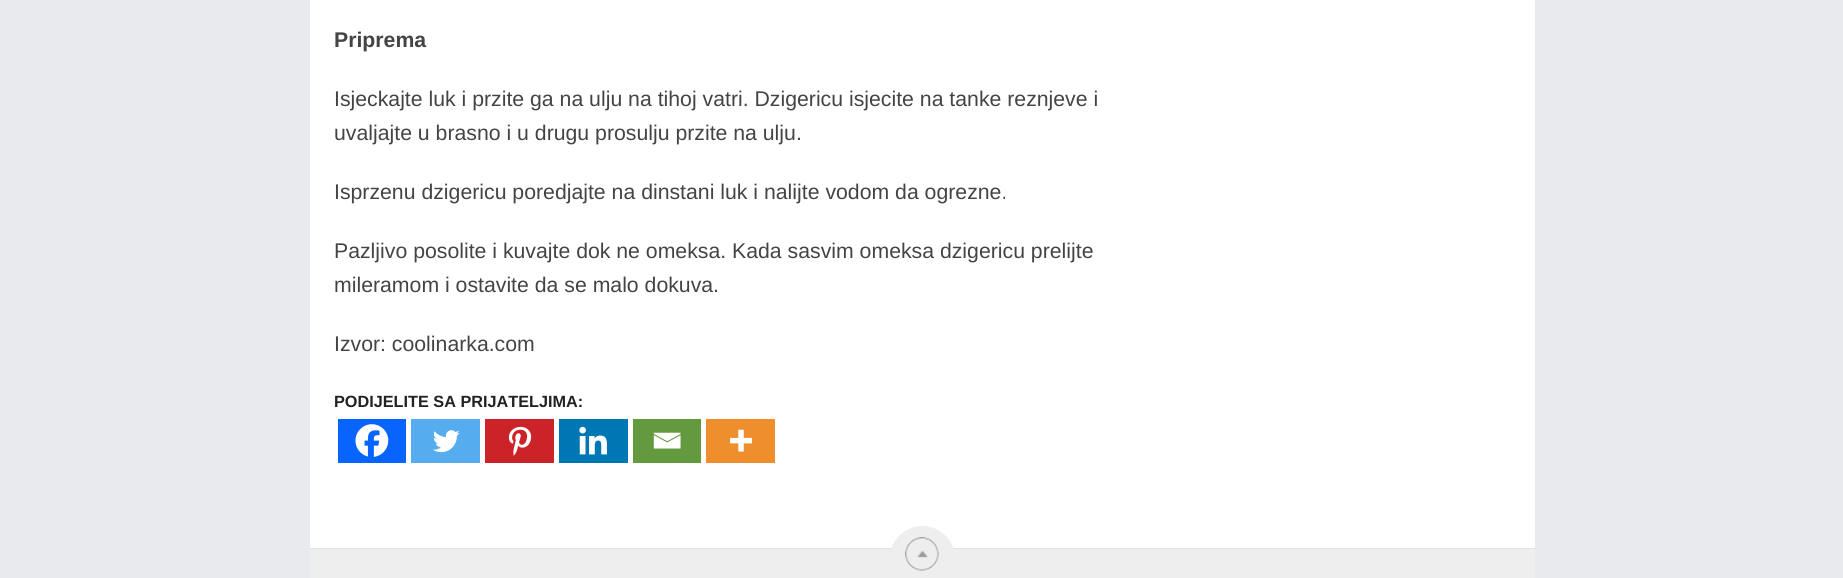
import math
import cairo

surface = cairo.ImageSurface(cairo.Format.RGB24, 1843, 578)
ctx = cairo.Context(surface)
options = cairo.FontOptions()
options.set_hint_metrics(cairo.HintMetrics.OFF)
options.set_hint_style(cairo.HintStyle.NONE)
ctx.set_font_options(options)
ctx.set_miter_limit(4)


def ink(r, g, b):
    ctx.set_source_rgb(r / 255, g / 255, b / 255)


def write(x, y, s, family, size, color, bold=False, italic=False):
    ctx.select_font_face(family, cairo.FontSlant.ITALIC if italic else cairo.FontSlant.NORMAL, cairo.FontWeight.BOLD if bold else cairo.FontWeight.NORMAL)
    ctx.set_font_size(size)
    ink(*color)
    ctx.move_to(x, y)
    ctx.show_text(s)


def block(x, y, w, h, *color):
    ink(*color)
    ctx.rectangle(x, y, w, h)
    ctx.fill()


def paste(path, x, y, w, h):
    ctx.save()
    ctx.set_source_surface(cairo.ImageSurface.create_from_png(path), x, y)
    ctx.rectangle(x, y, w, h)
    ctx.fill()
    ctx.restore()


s1 = dict(family="Liberation Sans", size=21.25, color=(68, 68, 68), bold=True)
s2 = dict(family="Liberation Sans", size=21.25, color=(68, 68, 68))
s3 = dict(family="Liberation Sans", size=16.25, color=(34, 34, 34), bold=True)

ink(233, 234, 237)
ctx.paint()
block(310, 0, 1225, 548, 255, 255, 255)
write(334, 47, "Priprema", **s1)
write(334, 106, "Isjeckajte luk i przite ga na ulju na tihoj vatri. Dzigericu isjecite na tanke reznjeve i", **s2)
write(334, 140, "uvaljajte u brasno i u drugu prosulju przite na ulju.", **s2)
write(334, 199, "Isprzenu dzigericu poredjajte na dinstani luk i nalijte vodom da ogrezne.", **s2)
write(334, 258, "Pazljivo posolite i kuvajte dok ne omeksa. Kada sasvim omeksa dzigericu prelijte", **s2)
write(334, 292, "mileramom i ostavite da se malo dokuva.", **s2)
write(334, 351, "Izvor: coolinarka.com", **s2)
write(334, 407, "PODIJELITE SA PRIJATELJIMA:", **s3)
block(338, 419, 68, 44, 7, 101, 254)
paste("pic1.png", 355, 424, 34, 33)
block(411, 419, 69, 44, 85, 172, 238)
paste("pic2.png", 433, 430, 27, 23)
block(485, 419, 69, 44, 204, 35, 41)
paste("pic3.png", 508, 426, 24, 30)
block(559, 419, 69, 44, 0, 119, 181)
paste("pic4.png", 579, 426, 28, 29)
block(633, 419, 68, 44, 100, 154, 63)
paste("pic5.png", 653, 432, 28, 17)
block(706, 419, 69, 44, 238, 142, 45)
paste("pic6.png", 730, 429, 22, 23)
block(310, 549, 1225, 29, 238, 238, 238)
block(310, 548, 1225, 1, 226, 226, 226)
ink(238, 238, 238)
ctx.arc(922.5, 558.5, 32.5, 0, 2 * math.pi)
ctx.fill()
paste("pic7.png", 905, 537, 34, 34)
surface.write_to_png("screenshot.png")
